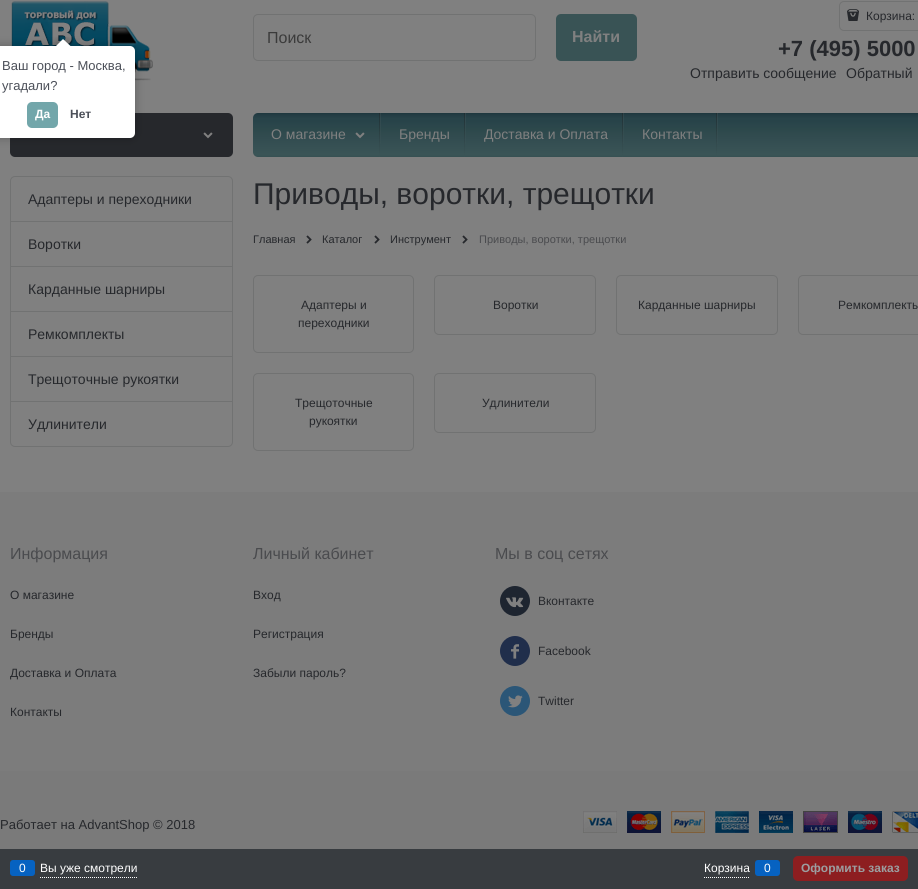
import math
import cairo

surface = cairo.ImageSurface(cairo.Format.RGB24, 918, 889)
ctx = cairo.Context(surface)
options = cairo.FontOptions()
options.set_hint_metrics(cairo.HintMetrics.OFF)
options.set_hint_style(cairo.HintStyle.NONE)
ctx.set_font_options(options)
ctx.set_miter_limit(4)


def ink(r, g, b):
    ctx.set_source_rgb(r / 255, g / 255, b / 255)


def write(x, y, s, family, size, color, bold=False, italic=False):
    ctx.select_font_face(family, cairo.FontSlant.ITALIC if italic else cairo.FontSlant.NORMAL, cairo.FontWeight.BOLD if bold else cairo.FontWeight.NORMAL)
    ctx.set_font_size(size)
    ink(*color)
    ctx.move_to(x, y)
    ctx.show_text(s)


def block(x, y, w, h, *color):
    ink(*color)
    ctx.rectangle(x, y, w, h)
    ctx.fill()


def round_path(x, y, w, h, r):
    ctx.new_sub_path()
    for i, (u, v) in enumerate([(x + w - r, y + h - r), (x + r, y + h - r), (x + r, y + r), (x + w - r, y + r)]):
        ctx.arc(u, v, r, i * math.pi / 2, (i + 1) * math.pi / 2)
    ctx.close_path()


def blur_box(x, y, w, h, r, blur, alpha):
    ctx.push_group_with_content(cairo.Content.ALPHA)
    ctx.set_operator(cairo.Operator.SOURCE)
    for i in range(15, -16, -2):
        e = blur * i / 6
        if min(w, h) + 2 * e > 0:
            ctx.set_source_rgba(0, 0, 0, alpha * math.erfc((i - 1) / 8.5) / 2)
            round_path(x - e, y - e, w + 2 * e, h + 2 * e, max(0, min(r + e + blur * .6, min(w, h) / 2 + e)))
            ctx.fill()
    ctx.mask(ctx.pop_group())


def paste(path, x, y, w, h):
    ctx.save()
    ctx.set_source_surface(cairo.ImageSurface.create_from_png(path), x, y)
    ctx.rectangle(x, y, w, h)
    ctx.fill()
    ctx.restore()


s1 = dict(family="Liberation Sans", size=16, color=(59, 59, 59))
s2 = dict(family="Liberation Sans", size=16, color=(128, 128, 128), bold=True)
s3 = dict(family="Liberation Sans", size=12, color=(38, 40, 44))
s4 = dict(family="Liberation Sans", size=22, color=(38, 40, 44), bold=True)
s5 = dict(family="Liberation Sans", size=14, color=(38, 40, 44))
s6 = dict(family="Liberation Sans", size=14, color=(128, 128, 128))
s7 = dict(family="Liberation Sans", size=30, color=(38, 40, 44))
s8 = dict(family="Liberation Sans", size=11, color=(38, 40, 44))
s9 = dict(family="Liberation Sans", size=11, color=(74, 75, 78))
s10 = dict(family="Liberation Sans", size=16, color=(74, 75, 78))
s11 = dict(family="Liberation Sans", size=13, color=(38, 40, 44))
s12 = dict(family="Liberation Sans", size=12, color=(255, 255, 255))
s13 = dict(family="Liberation Sans", size=12, color=(156, 158, 160), bold=True)
s14 = dict(family="Liberation Sans", size=13, color=(75, 79, 88))
s15 = dict(family="Liberation Sans", size=12, color=(255, 255, 255), bold=True)
s16 = dict(family="Liberation Sans", size=12, color=(75, 79, 88), bold=True)

ink(128, 128, 128)
ctx.paint()
paste("pic1.png", 11, 1, 142, 80)
round_path(253.5, 14.5, 282, 46, 4.5)
ink(113, 114, 114)
ctx.set_line_width(1)
ctx.stroke()
write(267, 43, "Поиск", **s1)
ink(57, 83, 85)
round_path(556, 14, 81, 47, 5)
ctx.fill()
write(572, 42, "Найти", **s2)
round_path(839.5, 1.5, 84, 29, 4.5)
ink(113, 114, 114)
ctx.stroke()
paste("pic2.png", 847, 9, 12, 12)
write(866, 20, "Корзина:", **s3)
write(778, 56, "+7 (495) 5000", **s4)
write(690, 78, "Отправить сообщение", **s5)
write(846, 78, "Обратный", **s5)
round_path(10, 113, 223, 44, 5)
ctx.fill()
paste("pic3.png", 203, 132, 10, 7)
gradient = cairo.LinearGradient(607, 113, 607, 157)
gradient.add_color_stop_rgba(0, 0.118, 0.212, 0.239, 1)
gradient.add_color_stop_rgba(0.05, 0.141, 0.239, 0.267, 1)
gradient.add_color_stop_rgba(0.13, 0.157, 0.263, 0.286, 1)
gradient.add_color_stop_rgba(0.18, 0.153, 0.263, 0.286, 1)
gradient.add_color_stop_rgba(0.26, 0.165, 0.271, 0.294, 1)
gradient.add_color_stop_rgba(0.36, 0.173, 0.282, 0.294, 1)
gradient.add_color_stop_rgba(0.51, 0.192, 0.294, 0.31, 1)
gradient.add_color_stop_rgba(0.92, 0.227, 0.329, 0.337, 1)
gradient.add_color_stop_rgba(0.95, 0.227, 0.329, 0.337, 1)
gradient.add_color_stop_rgba(1, 0.212, 0.314, 0.322, 1)
ctx.set_source(gradient)
round_path(253, 113, 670, 44, 5)
ctx.fill()
write(271, 139, "О магазине", **s6)
paste("pic4.png", 355, 132, 10, 7)
gradient = cairo.LinearGradient(381, 113, 381, 157)
gradient.add_color_stop_rgba(0, 0.502, 0.502, 0.502, 0.14)
gradient.add_color_stop_rgba(0.72, 0.502, 0.502, 0.502, 0.02)
gradient.add_color_stop_rgba(1, 0.502, 0.502, 0.502, 0)
ctx.set_source(gradient)
ctx.rectangle(380, 113, 1, 31)
ctx.fill()
gradient = cairo.LinearGradient(380, 113, 380, 157)
gradient.add_color_stop_rgba(0, 0.114, 0.114, 0.114, 0.39)
gradient.add_color_stop_rgba(0.17, 0.114, 0.114, 0.114, 0.33)
gradient.add_color_stop_rgba(0.61, 0.114, 0.114, 0.114, 0.12)
gradient.add_color_stop_rgba(0.96, 0.114, 0.114, 0.114, 0.01)
gradient.add_color_stop_rgba(0.98, 0.502, 0.502, 0.502, 0.01)
gradient.add_color_stop_rgba(1, 0.502, 0.502, 0.502, 0)
ctx.set_source(gradient)
ctx.rectangle(379, 113, 1, 44)
ctx.fill()
write(399, 139, "Бренды", **s6)
gradient = cairo.LinearGradient(466, 113, 466, 157)
gradient.add_color_stop_rgba(0, 0.502, 0.502, 0.502, 0.14)
gradient.add_color_stop_rgba(0.72, 0.502, 0.502, 0.502, 0.02)
gradient.add_color_stop_rgba(1, 0.502, 0.502, 0.502, 0)
ctx.set_source(gradient)
ctx.rectangle(465, 113, 1, 31)
ctx.fill()
gradient = cairo.LinearGradient(465, 113, 465, 157)
gradient.add_color_stop_rgba(0, 0.114, 0.114, 0.114, 0.39)
gradient.add_color_stop_rgba(0.17, 0.114, 0.114, 0.114, 0.33)
gradient.add_color_stop_rgba(0.61, 0.114, 0.114, 0.114, 0.12)
gradient.add_color_stop_rgba(0.96, 0.114, 0.114, 0.114, 0.01)
gradient.add_color_stop_rgba(0.98, 0.502, 0.502, 0.502, 0.01)
gradient.add_color_stop_rgba(1, 0.502, 0.502, 0.502, 0)
ctx.set_source(gradient)
ctx.rectangle(464, 113, 1, 44)
ctx.fill()
write(484, 139, "Доставка и Оплата", **s6)
gradient = cairo.LinearGradient(624, 113, 624, 157)
gradient.add_color_stop_rgba(0, 0.502, 0.502, 0.502, 0.14)
gradient.add_color_stop_rgba(0.72, 0.502, 0.502, 0.502, 0.02)
gradient.add_color_stop_rgba(1, 0.502, 0.502, 0.502, 0)
ctx.set_source(gradient)
ctx.rectangle(623, 113, 1, 31)
ctx.fill()
gradient = cairo.LinearGradient(623, 113, 623, 157)
gradient.add_color_stop_rgba(0, 0.114, 0.114, 0.114, 0.39)
gradient.add_color_stop_rgba(0.17, 0.114, 0.114, 0.114, 0.33)
gradient.add_color_stop_rgba(0.61, 0.114, 0.114, 0.114, 0.12)
gradient.add_color_stop_rgba(0.96, 0.114, 0.114, 0.114, 0.01)
gradient.add_color_stop_rgba(0.98, 0.502, 0.502, 0.502, 0.01)
gradient.add_color_stop_rgba(1, 0.502, 0.502, 0.502, 0)
ctx.set_source(gradient)
ctx.rectangle(622, 113, 1, 44)
ctx.fill()
write(642, 139, "Контакты", **s6)
gradient = cairo.LinearGradient(718, 113, 718, 157)
gradient.add_color_stop_rgba(0, 0.502, 0.502, 0.502, 0.14)
gradient.add_color_stop_rgba(0.72, 0.502, 0.502, 0.502, 0.02)
gradient.add_color_stop_rgba(1, 0.502, 0.502, 0.502, 0)
ctx.set_source(gradient)
ctx.rectangle(717, 113, 1, 31)
ctx.fill()
gradient = cairo.LinearGradient(717, 113, 717, 157)
gradient.add_color_stop_rgba(0, 0.114, 0.114, 0.114, 0.39)
gradient.add_color_stop_rgba(0.17, 0.114, 0.114, 0.114, 0.33)
gradient.add_color_stop_rgba(0.61, 0.114, 0.114, 0.114, 0.12)
gradient.add_color_stop_rgba(0.96, 0.114, 0.114, 0.114, 0.01)
gradient.add_color_stop_rgba(0.98, 0.502, 0.502, 0.502, 0.01)
gradient.add_color_stop_rgba(1, 0.502, 0.502, 0.502, 0)
ctx.set_source(gradient)
ctx.rectangle(716, 113, 1, 44)
ctx.fill()
round_path(10.5, 176.5, 222, 270, 4.5)
ink(113, 114, 114)
ctx.stroke()
block(11, 221, 221, 1, 113, 114, 114)
write(28, 204, "Адаптеры и переходники", **s5)
block(11, 266, 221, 1, 113, 114, 114)
write(28, 249, "Воротки", **s5)
block(11, 311, 221, 1, 113, 114, 114)
write(28, 294, "Карданные шарниры", **s5)
block(11, 356, 221, 1, 113, 114, 114)
write(28, 339, "Ремкомплекты", **s5)
block(11, 401, 221, 1, 113, 114, 114)
write(28, 384, "Трещоточные рукоятки", **s5)
write(28, 429, "Удлинители", **s5)
write(253, 204, "Приводы, воротки, трещотки", **s7)
write(253, 243, "Главная", **s8)
paste("pic5.png", 306, 235, 6, 9)
write(322, 243, "Каталог", **s8)
paste("pic5.png", 374, 235, 6, 9)
write(390, 243, "Инструмент", **s8)
paste("pic5.png", 462, 235, 6, 9)
write(479, 243, "Приводы, воротки, трещотки", **s9)
round_path(253.5, 275.5, 160, 77, 4.5)
ink(113, 114, 114)
ctx.stroke()
write(301, 309, "Адаптеры и", **s3)
write(298, 327, "переходники", **s3)
round_path(434.5, 275.5, 161, 59, 4.5)
ink(113, 114, 114)
ctx.stroke()
write(493, 309, "Воротки", **s3)
round_path(616.5, 275.5, 161, 59, 4.5)
ink(113, 114, 114)
ctx.stroke()
write(638, 309, "Карданные шарниры", **s3)
round_path(798.5, 275.5, 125, 59, 4.5)
ink(113, 114, 114)
ctx.stroke()
write(838, 309, "Ремкомплекты", **s3)
round_path(253.5, 373.5, 160, 77, 4.5)
ink(113, 114, 114)
ctx.stroke()
write(295, 407, "Трещоточные", **s3)
write(309, 425, "рукоятки", **s3)
round_path(434.5, 373.5, 161, 59, 4.5)
ink(113, 114, 114)
ctx.stroke()
write(482, 407, "Удлинители", **s3)
block(0, 492, 918, 279, 124, 124, 124)
write(10, 559, "Информация", **s10)
write(10, 599, "О магазине", **s3)
write(10, 638, "Бренды", **s3)
write(10, 677, "Доставка и Оплата", **s3)
write(10, 716, "Контакты", **s3)
write(253, 559, "Личный кабинет", **s10)
write(253, 599, "Вход", **s3)
write(253, 638, "Регистрация", **s3)
write(253, 677, "Забыли пароль?", **s3)
write(495, 559, "Мы в соц сетях", **s10)
ink(30, 37, 48)
ctx.new_path()
ctx.arc(515, 601, 15, 0, 2 * math.pi)
ctx.fill()
paste("pic6.png", 506, 597, 18, 11)
write(538, 605, "Вконтакте", **s3)
ink(32, 46, 75)
ctx.new_path()
ctx.arc(515, 651, 15, 0, 2 * math.pi)
ctx.fill()
paste("pic7.png", 511, 644, 8, 15)
write(538, 655, "Facebook", **s3)
ink(43, 86, 119)
ctx.new_path()
ctx.arc(515, 701, 15, 0, 2 * math.pi)
ctx.fill()
paste("pic8.png", 508, 695, 15, 13)
write(538, 705, "Twitter", **s3)
block(0, 771, 918, 78, 122, 122, 122)
write(0, 829, "Работает на AdvantShop © 2018", **s11)
paste("pic9.png", 583, 811, 335, 22)
block(0, 849, 918, 40, 56, 60, 64)
ctx.new_path()
ctx.move_to(40, 877.5)
ctx.line_to(137, 877.5)
ink(255, 255, 255)
ctx.set_dash([1, 1])
ctx.stroke()
ink(6, 98, 193)
round_path(10, 860, 25, 16, 3)
ctx.fill()
write(19, 872, "0", **s12)
write(40, 872, "Вы уже смотрели", **s12)
ctx.new_path()
ctx.move_to(704, 877.5)
ctx.line_to(750, 877.5)
ctx.stroke()
write(704, 872, "Корзина", **s12)
ink(6, 98, 193)
round_path(755, 860, 25, 16, 3)
ctx.fill()
write(764, 872, "0", **s12)
ink(141, 30, 32)
round_path(793, 856, 115, 25, 5)
ctx.fill()
write(801, 872, "Оформить заказ", **s13)
ink(0, 0, 0)
blur_box(-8, 46, 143, 92, 5, 4.5, 0.25)
ink(255, 255, 255)
round_path(-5, 46, 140, 92, 5)
ctx.fill()
ctx.save()
ctx.rectangle(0, 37, 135, 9)
ctx.clip()
ink(0, 0, 0)
blur_box(58, 41, 10, 10, 0, 4.5, 0.25)
ctx.restore()
ctx.save()
ctx.rectangle(0, 37, 135, 9)
ctx.clip()
ctx.new_path()
ctx.move_to(63, 39)
ctx.line_to(70.5, 46)
ctx.line_to(63, 53)
ctx.line_to(56, 46)
ctx.close_path()
ctx.fill()
ctx.restore()
write(2, 70, "Ваш город - Москва,", **s14)
write(2, 90, "угадали?", **s14)
ink(114, 166, 170)
round_path(27, 102, 31, 26, 5)
ctx.fill()
write(35, 118, "Да", **s15)
write(70, 118, "Нет", **s16)
surface.write_to_png("screenshot.png")
